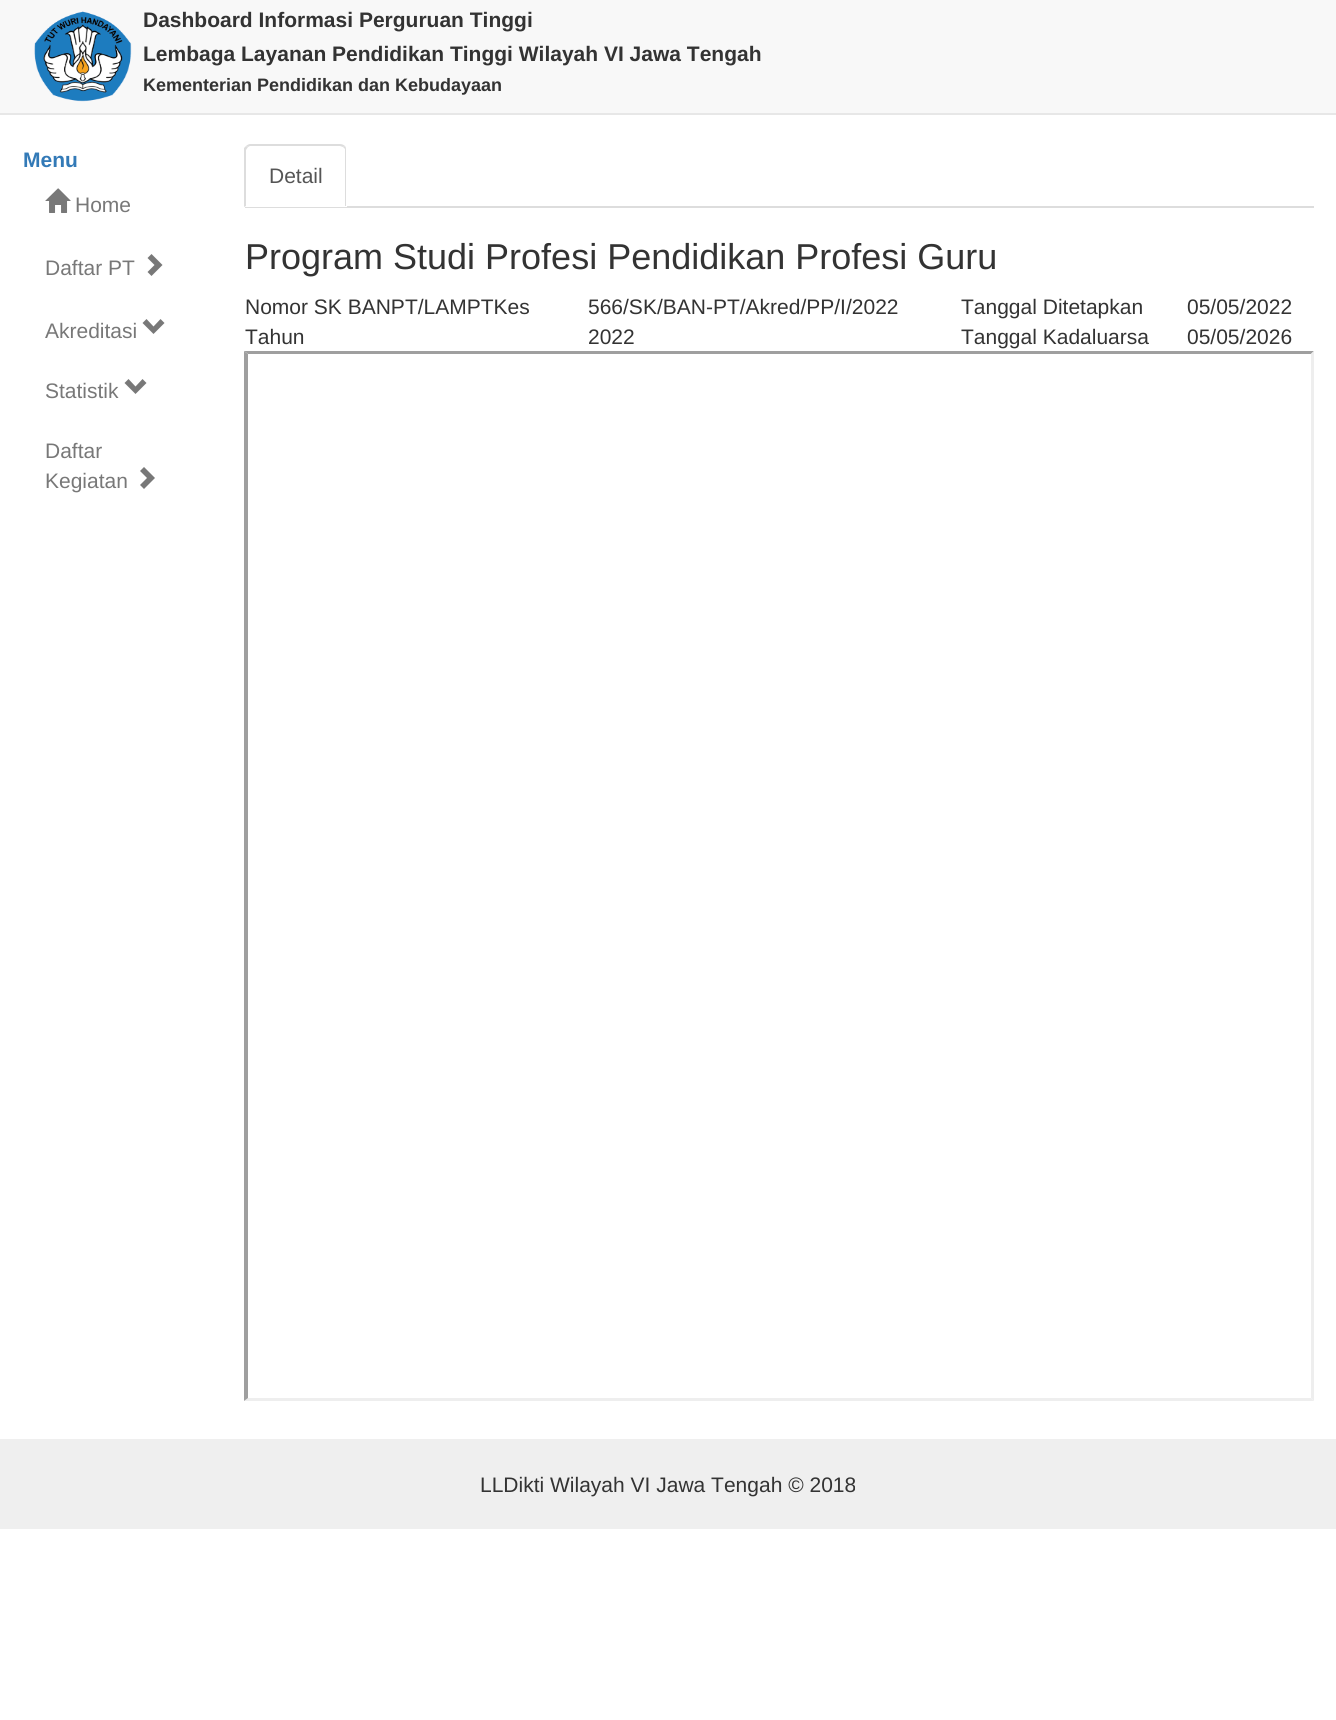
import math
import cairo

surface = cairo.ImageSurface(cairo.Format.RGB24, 1336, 1720)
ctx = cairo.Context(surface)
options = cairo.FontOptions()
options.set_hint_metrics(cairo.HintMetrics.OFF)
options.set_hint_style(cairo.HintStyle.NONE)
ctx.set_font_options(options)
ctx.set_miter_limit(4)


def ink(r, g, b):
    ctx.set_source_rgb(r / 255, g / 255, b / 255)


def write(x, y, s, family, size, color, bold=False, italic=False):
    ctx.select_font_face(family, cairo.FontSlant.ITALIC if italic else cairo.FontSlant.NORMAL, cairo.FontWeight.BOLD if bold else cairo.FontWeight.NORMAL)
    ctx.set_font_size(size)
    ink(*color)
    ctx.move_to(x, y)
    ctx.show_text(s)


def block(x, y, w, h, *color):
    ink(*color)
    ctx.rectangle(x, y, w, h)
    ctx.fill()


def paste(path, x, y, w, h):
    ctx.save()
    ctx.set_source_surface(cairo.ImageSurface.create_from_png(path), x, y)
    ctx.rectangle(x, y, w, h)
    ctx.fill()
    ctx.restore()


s1 = dict(family="Liberation Sans", size=21, color=(51, 51, 51), bold=True)
s2 = dict(family="Liberation Sans", size=18, color=(51, 51, 51), bold=True)
s3 = dict(family="Liberation Sans", size=21, color=(51, 122, 183), bold=True)
s4 = dict(family="Liberation Sans", size=21, color=(120, 120, 120))
s5 = dict(family="Liberation Sans", size=21, color=(85, 85, 85))
s6 = dict(family="Liberation Sans", size=36, color=(51, 51, 51))
s7 = dict(family="Liberation Sans", size=21, color=(51, 51, 51))

ink(255, 255, 255)
ctx.paint()
block(0, 0, 1336, 113, 248, 248, 248)
block(0, 113, 1336, 2, 231, 231, 231)
paste("pic1.png", 34, 11, 98, 91)
write(143, 27, "Dashboard Informasi Perguruan Tinggi", **s1)
write(143, 61, "Lembaga Layanan Pendidikan Tinggi Wilayah VI Jawa Tengah", **s1)
write(143, 91, "Kementerian Pendidikan dan Kebudayaan", **s2)
write(23, 167, "Menu", **s3)
paste("pic2.png", 45, 188, 26, 25)
write(75, 212, "Home", **s4)
write(45, 275, "Daftar PT", **s4)
ctx.new_path()
ctx.move_to(162.5, 265)
ctx.line_to(151.5, 276)
ctx.line_to(147.5, 272)
ctx.line_to(154.5, 265)
ctx.line_to(147.5, 258)
ctx.line_to(151.5, 254)
ctx.close_path()
ctx.fill()
write(45, 338, "Akreditasi", **s4)
ctx.new_path()
ctx.move_to(164.5, 323)
ctx.line_to(153.5, 334)
ctx.line_to(142.5, 323)
ctx.line_to(146.5, 319)
ctx.line_to(153.5, 326.5)
ctx.line_to(160.5, 319)
ctx.close_path()
ctx.fill()
write(45, 398, "Statistik", **s4)
ctx.new_path()
ctx.move_to(146.5, 383)
ctx.line_to(135.5, 394)
ctx.line_to(124.5, 383)
ctx.line_to(128.5, 379)
ctx.line_to(135.5, 386.5)
ctx.line_to(142.5, 379)
ctx.close_path()
ctx.fill()
write(45, 458, "Daftar", **s4)
write(45, 488, "Kegiatan", **s4)
ctx.new_path()
ctx.move_to(155, 478)
ctx.line_to(144, 489)
ctx.line_to(140, 485)
ctx.line_to(147, 478)
ctx.line_to(140, 471)
ctx.line_to(144, 467)
ctx.close_path()
ctx.fill()
block(245, 206, 1069, 2, 221, 221, 221)
ink(255, 255, 255)
ctx.new_path()
ctx.move_to(251, 144)
ctx.line_to(341, 144)
ctx.curve_to(344.5, 144, 347, 146.5, 347, 150)
ctx.line_to(347, 207)
ctx.line_to(245, 207)
ctx.line_to(245, 150)
ctx.curve_to(245, 146.5, 247.5, 144, 251, 144)
ctx.close_path()
ctx.fill()
ink(221, 221, 221)
ctx.new_path()
ctx.move_to(250, 144)
ctx.curve_to(249, 144, 247, 145, 246, 146)
ctx.line_to(248, 147)
ctx.line_to(250, 146)
ctx.line_to(340, 146)
ctx.line_to(343, 147)
ctx.line_to(345, 146)
ctx.curve_to(344, 145, 342, 144, 340, 144)
ctx.close_path()
ctx.fill()
ctx.new_path()
ctx.move_to(345, 146)
ctx.curve_to(346, 147, 346, 149, 346, 150)
ctx.line_to(346, 206)
ctx.line_to(345, 206)
ctx.line_to(345, 149)
ctx.line_to(343, 147)
ctx.close_path()
ctx.fill()
ctx.new_path()
ctx.move_to(244, 207)
ctx.line_to(244, 148)
ctx.line_to(246, 146)
ctx.line_to(248, 147)
ctx.line_to(246, 150)
ctx.line_to(246, 206)
ctx.close_path()
ctx.fill()
write(269, 183, "Detail", **s5)
write(245, 269, "Program Studi Profesi Pendidikan Profesi Guru", **s6)
write(245, 314, "Nomor SK BANPT/LAMPTKes", **s7)
write(588, 314, "566/SK/BAN-PT/Akred/PP/I/2022", **s7)
write(961, 314, "Tanggal Ditetapkan", **s7)
write(1187, 314, "05/05/2022", **s7)
write(245, 344, "Tahun", **s7)
write(588, 344, "2022", **s7)
write(961, 344, "Tanggal Kadaluarsa", **s7)
write(1187, 344, "05/05/2026", **s7)
ink(159, 159, 159)
ctx.new_path()
ctx.move_to(244, 351)
ctx.line_to(1314, 351)
ctx.line_to(1311, 354)
ctx.line_to(248, 354)
ctx.close_path()
ctx.fill()
ink(238, 238, 238)
ctx.new_path()
ctx.move_to(1314, 351)
ctx.line_to(1314, 1401)
ctx.line_to(1311, 1398)
ctx.line_to(1311, 354)
ctx.close_path()
ctx.fill()
ctx.new_path()
ctx.move_to(1314, 1401)
ctx.line_to(244, 1401)
ctx.line_to(248, 1398)
ctx.line_to(1311, 1398)
ctx.close_path()
ctx.fill()
ink(159, 159, 159)
ctx.new_path()
ctx.move_to(244, 1401)
ctx.line_to(244, 351)
ctx.line_to(248, 354)
ctx.line_to(248, 1398)
ctx.close_path()
ctx.fill()
block(0, 1439, 1336, 90, 239, 239, 239)
write(480, 1492, "LLDikti Wilayah VI Jawa Tengah © 2018", **s7)
surface.write_to_png("screenshot.png")
